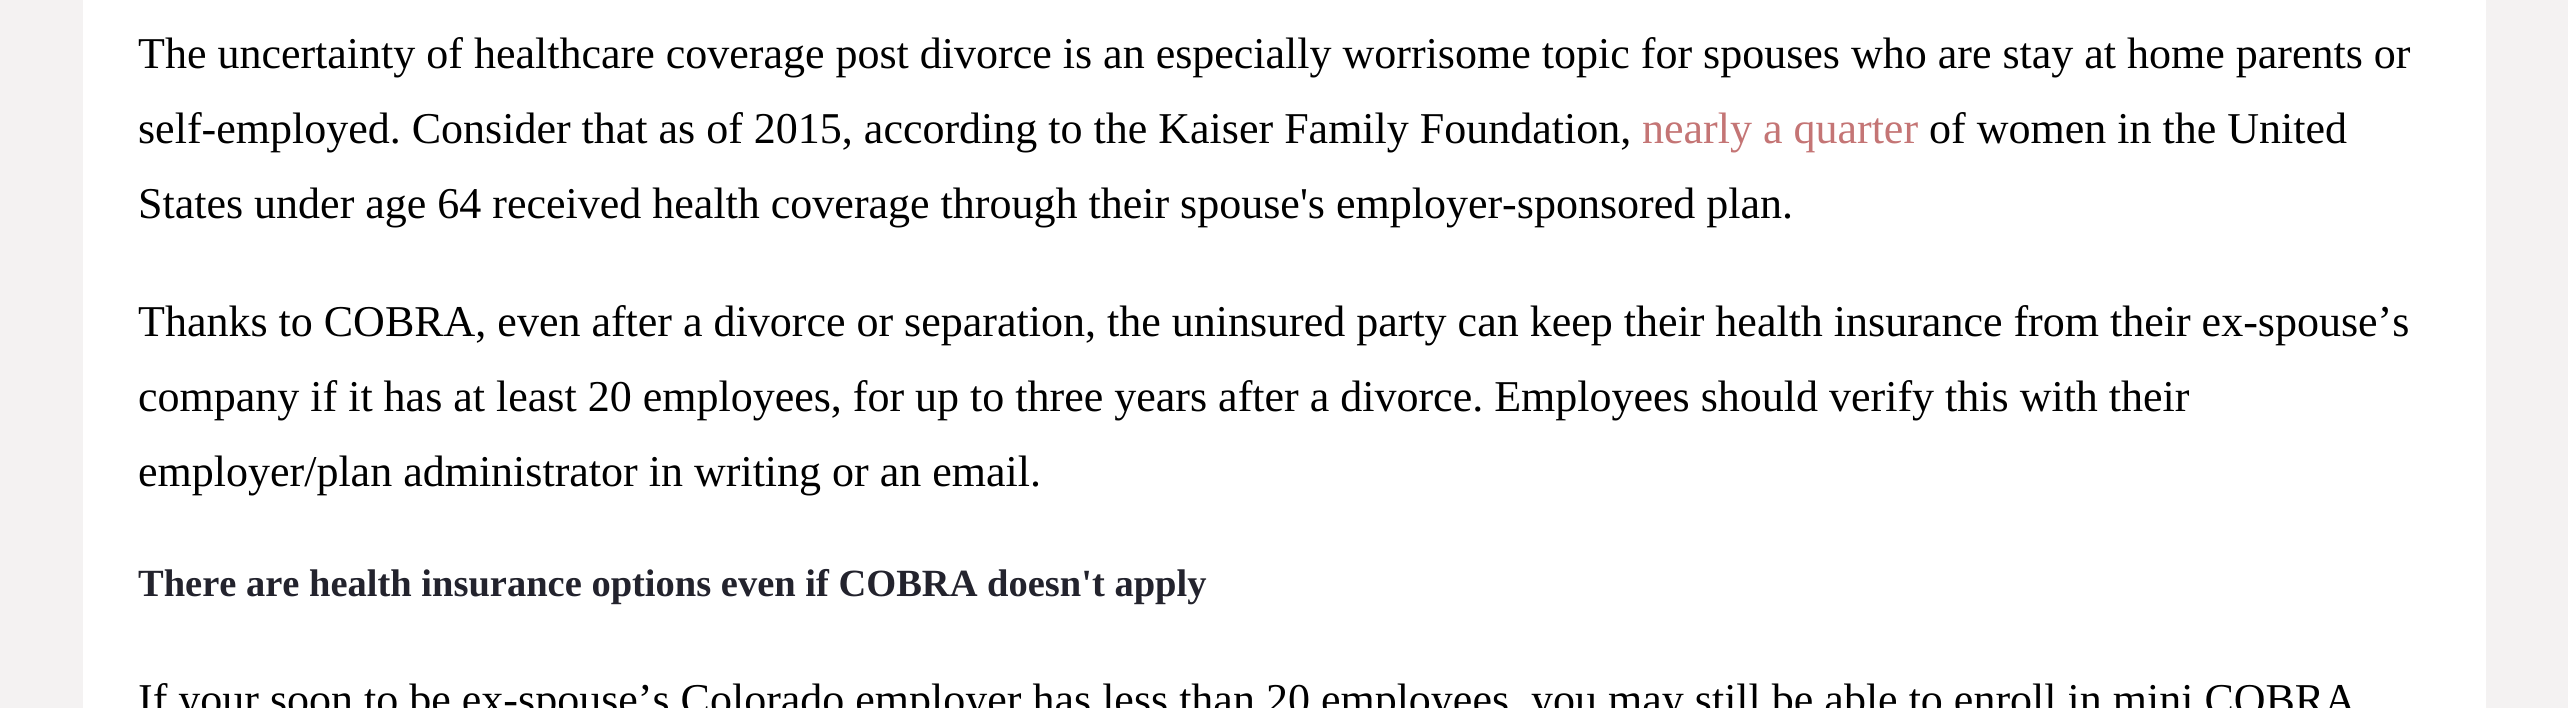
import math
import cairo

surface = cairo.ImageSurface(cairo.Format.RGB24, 2568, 708)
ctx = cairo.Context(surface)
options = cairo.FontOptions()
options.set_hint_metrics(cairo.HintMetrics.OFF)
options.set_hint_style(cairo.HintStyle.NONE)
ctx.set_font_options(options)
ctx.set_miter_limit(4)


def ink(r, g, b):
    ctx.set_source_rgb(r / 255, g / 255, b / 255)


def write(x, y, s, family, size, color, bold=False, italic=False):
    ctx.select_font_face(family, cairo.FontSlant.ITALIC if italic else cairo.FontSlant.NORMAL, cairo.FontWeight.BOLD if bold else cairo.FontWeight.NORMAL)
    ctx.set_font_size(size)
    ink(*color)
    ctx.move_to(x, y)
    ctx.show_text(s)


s1 = dict(family="Liberation Serif", size=44, color=(0, 0, 0))
s2 = dict(family="Liberation Serif", size=44, color=(196, 117, 117))
s3 = dict(family="Liberation Serif", size=38.5, color=(35, 35, 45), bold=True)

ink(255, 255, 255)
ctx.paint()
ctx.rectangle(41.5, -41.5, 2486, 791)
ink(244, 242, 242)
ctx.set_line_width(83)
ctx.stroke()
write(138, 68, "The uncertainty of healthcare coverage post divorce is an especially worrisome topic for spouses who are stay at home parents or", **s1)
write(138, 143, "self-employed. Consider that as of 2015, according to the Kaiser Family Foundation,", **s1)
write(1642, 143, "nearly a quarter", **s2)
write(1929, 143, "of women in the United", **s1)
write(138, 218, "States under age 64 received health coverage through their spouse's employer-sponsored plan.", **s1)
write(138, 336, "Thanks to COBRA, even after a divorce or separation, the uninsured party can keep their health insurance from their ex-spouse’s", **s1)
write(138, 411, "company if it has at least 20 employees, for up to three years after a divorce. Employees should verify this with their", **s1)
write(138, 486, "employer/plan administrator in writing or an email.", **s1)
write(138, 596, "There are health insurance options even if COBRA doesn't apply", **s3)
write(138, 714, "If your soon to be ex-spouse’s Colorado employer has less than 20 employees, you may still be able to enroll in mini COBRA", **s1)
surface.write_to_png("screenshot.png")
